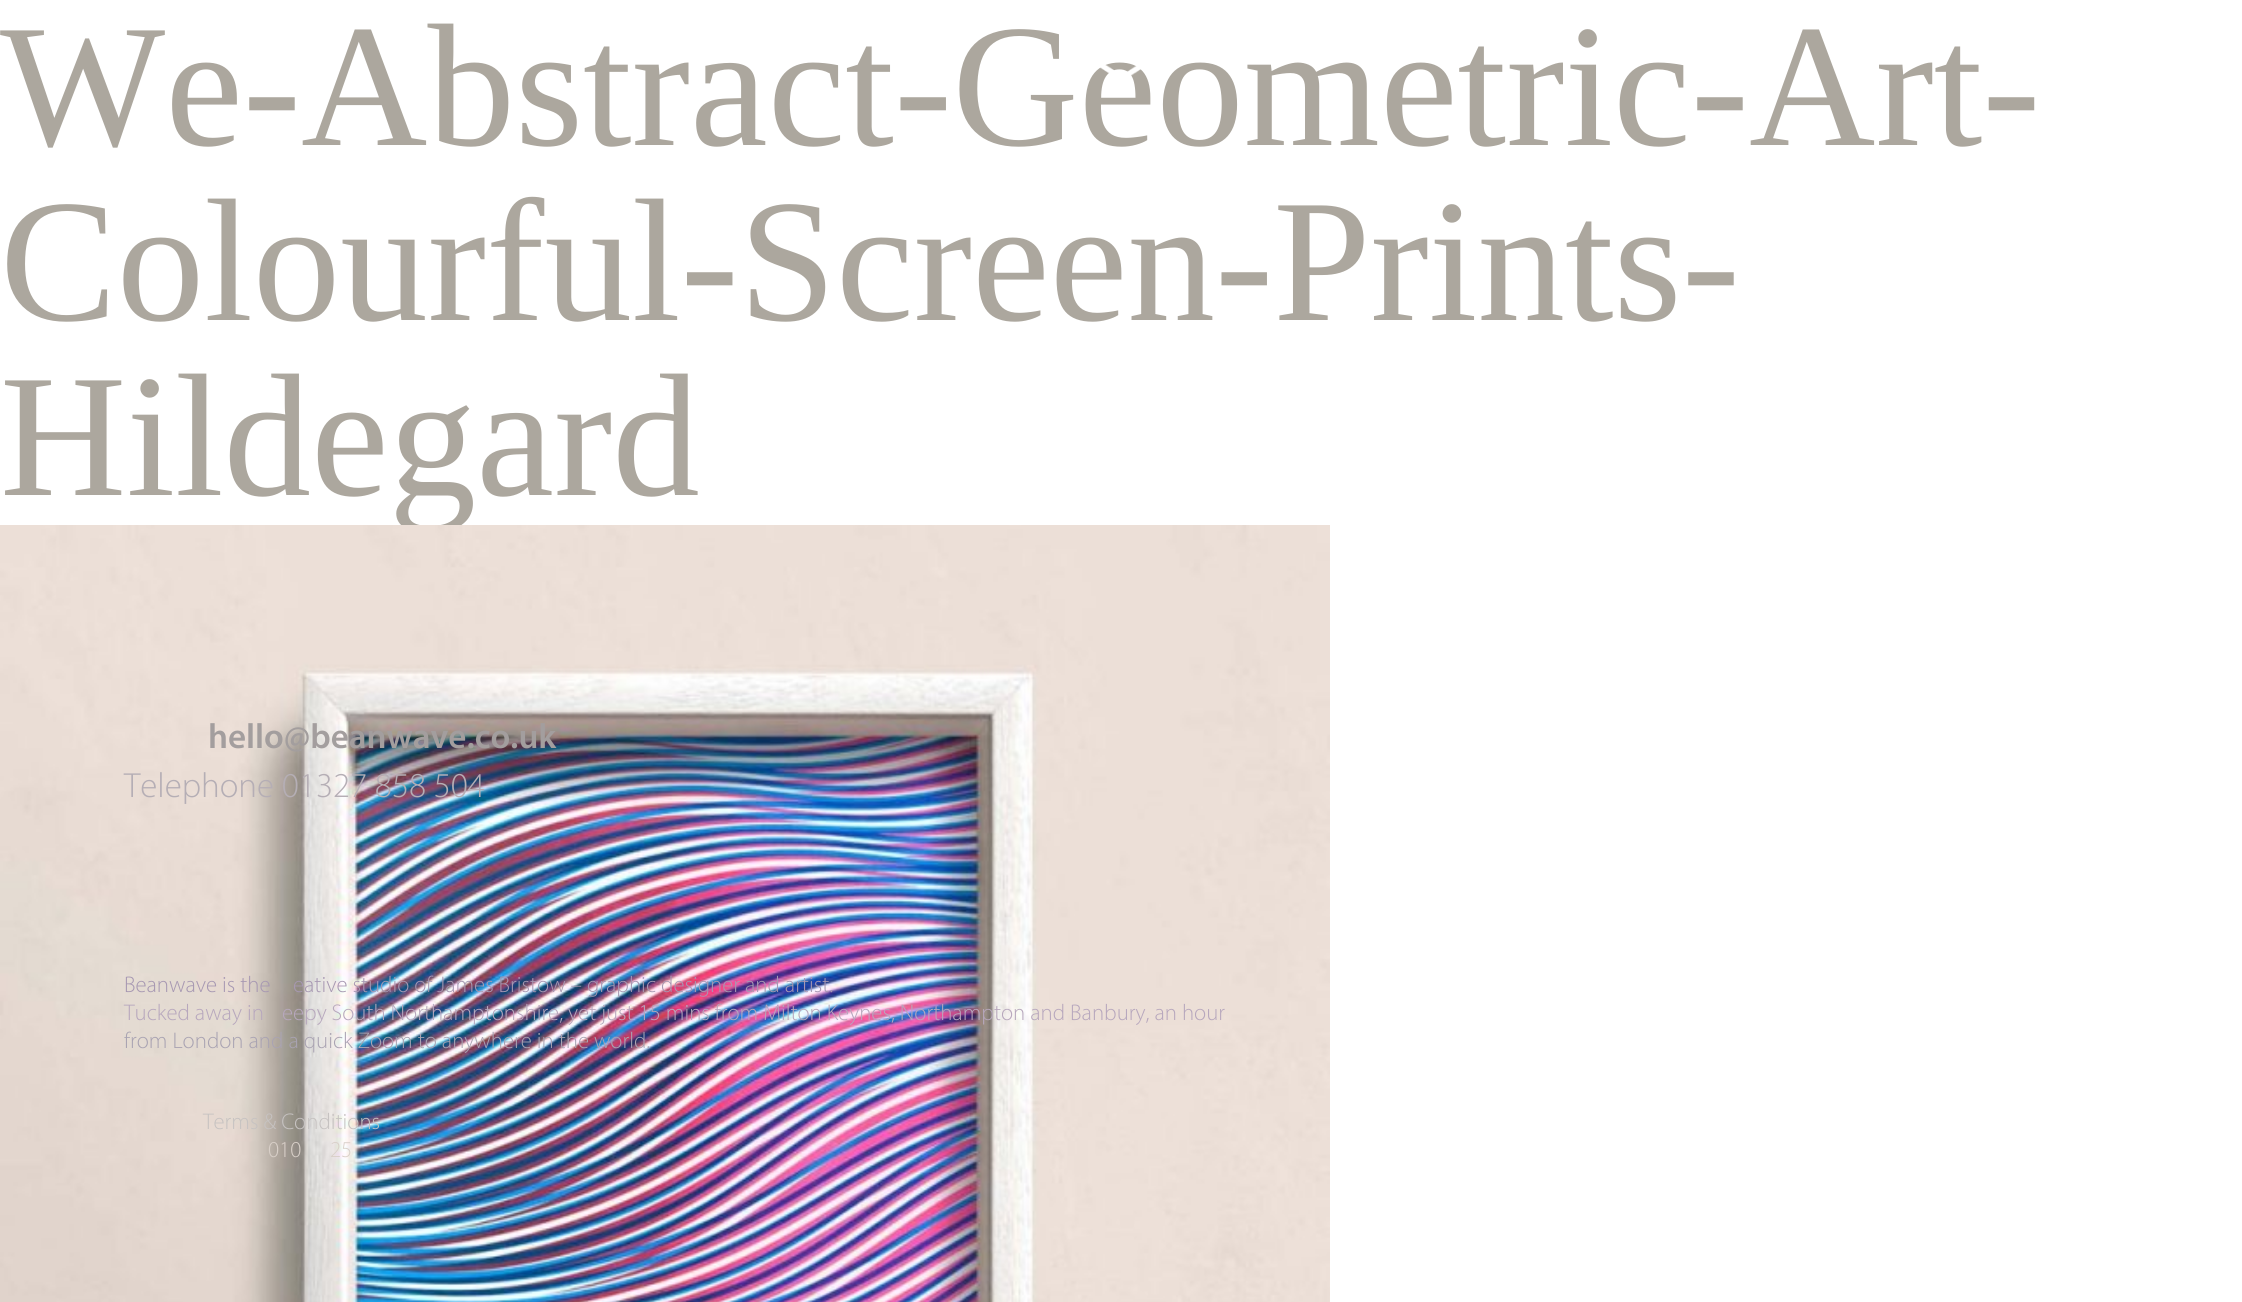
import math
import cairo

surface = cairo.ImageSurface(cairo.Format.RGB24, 2242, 1302)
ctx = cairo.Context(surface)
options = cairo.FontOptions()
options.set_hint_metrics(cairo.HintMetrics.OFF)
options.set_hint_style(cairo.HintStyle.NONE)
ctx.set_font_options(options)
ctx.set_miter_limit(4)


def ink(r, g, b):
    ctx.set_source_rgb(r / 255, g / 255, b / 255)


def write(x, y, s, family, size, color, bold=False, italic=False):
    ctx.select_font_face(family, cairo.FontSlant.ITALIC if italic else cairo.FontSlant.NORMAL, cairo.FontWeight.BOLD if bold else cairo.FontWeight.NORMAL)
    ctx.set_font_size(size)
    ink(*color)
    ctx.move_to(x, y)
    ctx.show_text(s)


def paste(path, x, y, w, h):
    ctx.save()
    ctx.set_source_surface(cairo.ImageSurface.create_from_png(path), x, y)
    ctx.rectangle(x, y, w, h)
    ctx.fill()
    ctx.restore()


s1 = dict(family="Liberation Serif", size=175, color=(172, 167, 158))
s2 = dict(family="Myriad SemiBold", size=35, color=(163, 158, 158))
s3 = dict(family="Myriad Light", size=35, color=(181, 174, 181))
s4 = dict(family="Myriad Light", size=22.75, color=(167, 152, 178))
s5 = dict(family="Myriad Light", size=22.75, color=(183, 167, 189))
s6 = dict(family="Myriad Light", size=22.75, color=(169, 163, 178))
s7 = dict(family="Myriad Light", size=22.75, color=(198, 194, 193))
s8 = dict(family="Myriad Light", size=22.75, color=(217, 208, 201))

ink(255, 255, 255)
ctx.paint()
write(0, 145, "We-Abstract-Geometric-Art-", **s1)
write(0, 320, "Colourful-Screen-Prints-", **s1)
write(0, 495, "Hildegard", **s1)
paste("pic1.png", 0, 525, 1330, 777)
paste("pic2.png", 1100, 65, 41, 11)
write(208, 748, "hello@beanwave.co.uk", **s2)
write(124, 797, "Telephone 01327 858 504", **s3)
write(124, 992, "Beanwave is the", **s4)
write(293, 992, "eative studio of James Bristow – graphic designer and artist.", **s4)
write(124, 1020, "Tucked away in", **s5)
write(282, 1020, "eepy South Northamptonshire, yet just 15 mins from Milton Keynes, Northampton and Banbury, an hour", **s5)
write(124, 1048, "from London and a quick Zoom to anywhere in the world.", **s6)
write(203, 1129, "Terms & Conditions", **s7)
write(268, 1157, "010", **s8)
write(330, 1157, "25", **s8)
surface.write_to_png("screenshot.png")
